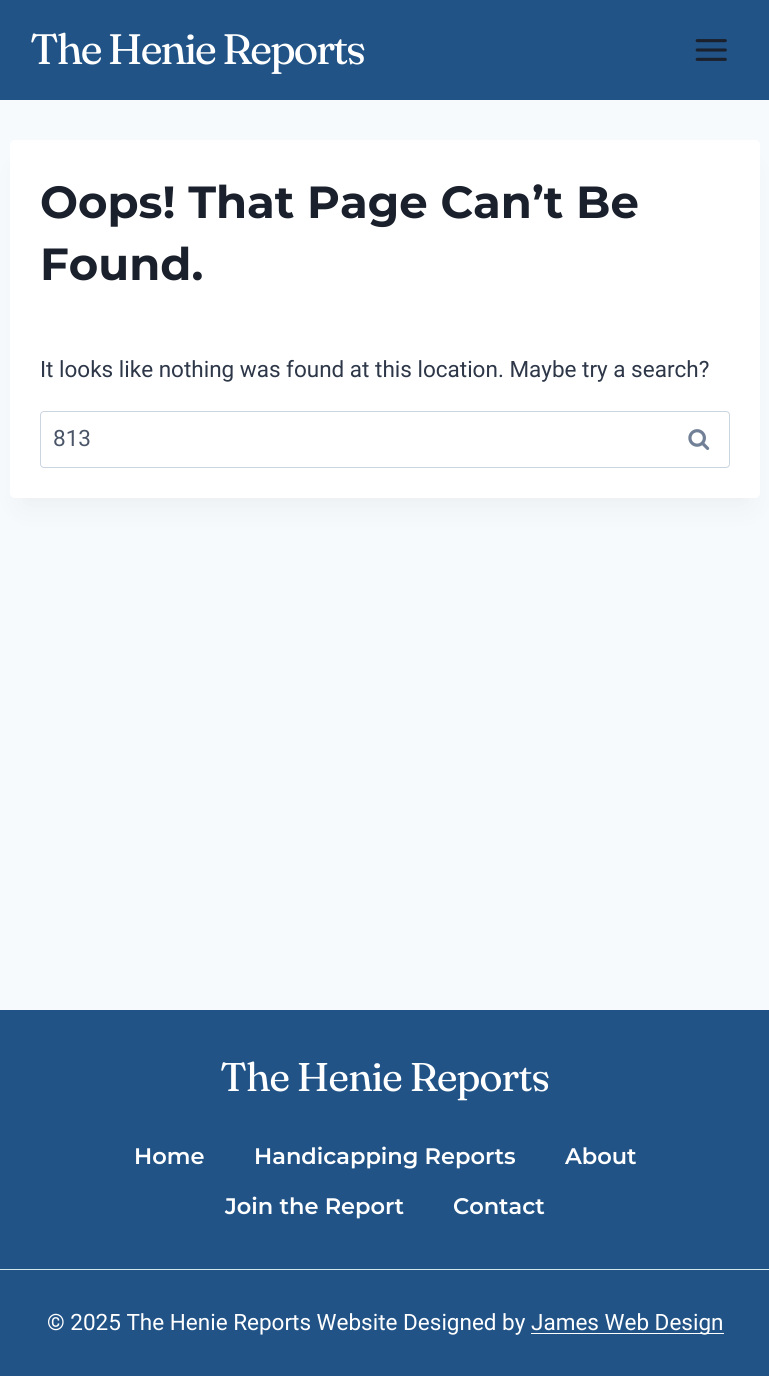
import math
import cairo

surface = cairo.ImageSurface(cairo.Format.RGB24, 769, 1376)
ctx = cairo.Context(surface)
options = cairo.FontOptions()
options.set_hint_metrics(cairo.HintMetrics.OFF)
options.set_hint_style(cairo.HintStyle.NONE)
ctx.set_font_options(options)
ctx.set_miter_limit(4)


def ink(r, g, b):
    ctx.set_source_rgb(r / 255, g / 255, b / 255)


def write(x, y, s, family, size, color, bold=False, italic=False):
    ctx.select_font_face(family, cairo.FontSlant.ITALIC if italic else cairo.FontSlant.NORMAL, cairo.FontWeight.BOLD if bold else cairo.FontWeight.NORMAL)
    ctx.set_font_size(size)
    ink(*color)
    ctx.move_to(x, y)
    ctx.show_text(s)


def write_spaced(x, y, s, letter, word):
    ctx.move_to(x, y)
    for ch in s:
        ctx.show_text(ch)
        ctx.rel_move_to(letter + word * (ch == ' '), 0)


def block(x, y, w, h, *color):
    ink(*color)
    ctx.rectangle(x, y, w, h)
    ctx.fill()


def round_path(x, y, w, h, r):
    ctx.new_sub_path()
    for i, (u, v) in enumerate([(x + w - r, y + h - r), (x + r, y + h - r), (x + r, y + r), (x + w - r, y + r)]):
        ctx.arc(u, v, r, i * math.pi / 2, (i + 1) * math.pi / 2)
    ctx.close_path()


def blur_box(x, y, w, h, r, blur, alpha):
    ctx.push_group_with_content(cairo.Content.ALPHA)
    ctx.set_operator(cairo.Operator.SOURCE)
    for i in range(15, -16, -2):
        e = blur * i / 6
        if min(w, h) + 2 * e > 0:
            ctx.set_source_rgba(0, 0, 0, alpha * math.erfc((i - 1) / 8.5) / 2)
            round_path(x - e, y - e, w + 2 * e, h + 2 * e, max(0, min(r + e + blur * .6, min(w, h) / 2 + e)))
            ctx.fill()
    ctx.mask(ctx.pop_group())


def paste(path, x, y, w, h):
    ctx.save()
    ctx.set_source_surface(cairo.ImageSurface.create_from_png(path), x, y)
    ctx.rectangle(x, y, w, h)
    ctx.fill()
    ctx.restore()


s1 = dict(family="Montserrat", size=45, color=(26, 32, 44), bold=True)
s2 = dict(family="Roboto", size=22.5, color=(45, 55, 72))
s3 = dict(family="Roboto", size=22.5, color=(74, 85, 104))
s4 = dict(family="Montserrat SemiBold", size=22.5, color=(255, 255, 255))
s5 = dict(family="Roboto", size=22.5, color=(255, 255, 255))

ink(247, 250, 252)
ctx.paint()
block(0, 0, 769, 100, 33, 83, 135)
ctx.select_font_face("Fraunces")
ctx.set_font_size(42.5)
ink(255, 255, 255)
write_spaced(30, 64, "The Henie Reports", -2.25, 0)
paste("pic1.png", 695, 39, 32, 22)
ink(0, 0, 0)
blur_box(23, 171, 725, 333, 0, 15.5, 0.05)
ink(255, 255, 255)
round_path(10, 140, 750, 358, 5)
ctx.fill()
write(40, 218, "Oops! That Page Can’t Be", **s1)
write(40, 280, "Found.", **s1)
write(40, 377, "It looks like nothing was found at this location. Maybe try a search?", **s2)
round_path(40.5, 411.5, 689, 56, 3.5)
ink(203, 213, 224)
ctx.set_line_width(1)
ctx.stroke()
write(53, 446, "813", **s3)
paste("pic2.png", 688, 429, 22, 21)
block(0, 1010, 769, 366, 33, 83, 135)
ctx.select_font_face("Fraunces")
ctx.set_font_size(40)
ink(255, 255, 255)
write_spaced(220, 1091, "The Henie Reports", -1.25, 0)
write(134, 1164, "Home", **s4)
write(254, 1164, "Handicapping Reports", **s4)
write(565, 1164, "About", **s4)
write(225, 1214, "Join the Report", **s4)
write(453, 1214, "Contact", **s4)
block(0, 1269, 769, 1, 210, 232, 235)
write(47, 1330, "© 2025 The Henie Reports Website Designed by", **s5)
block(531, 1333, 193, 1, 255, 255, 255)
write(531, 1330, "James Web Design", **s5)
surface.write_to_png("screenshot.png")
